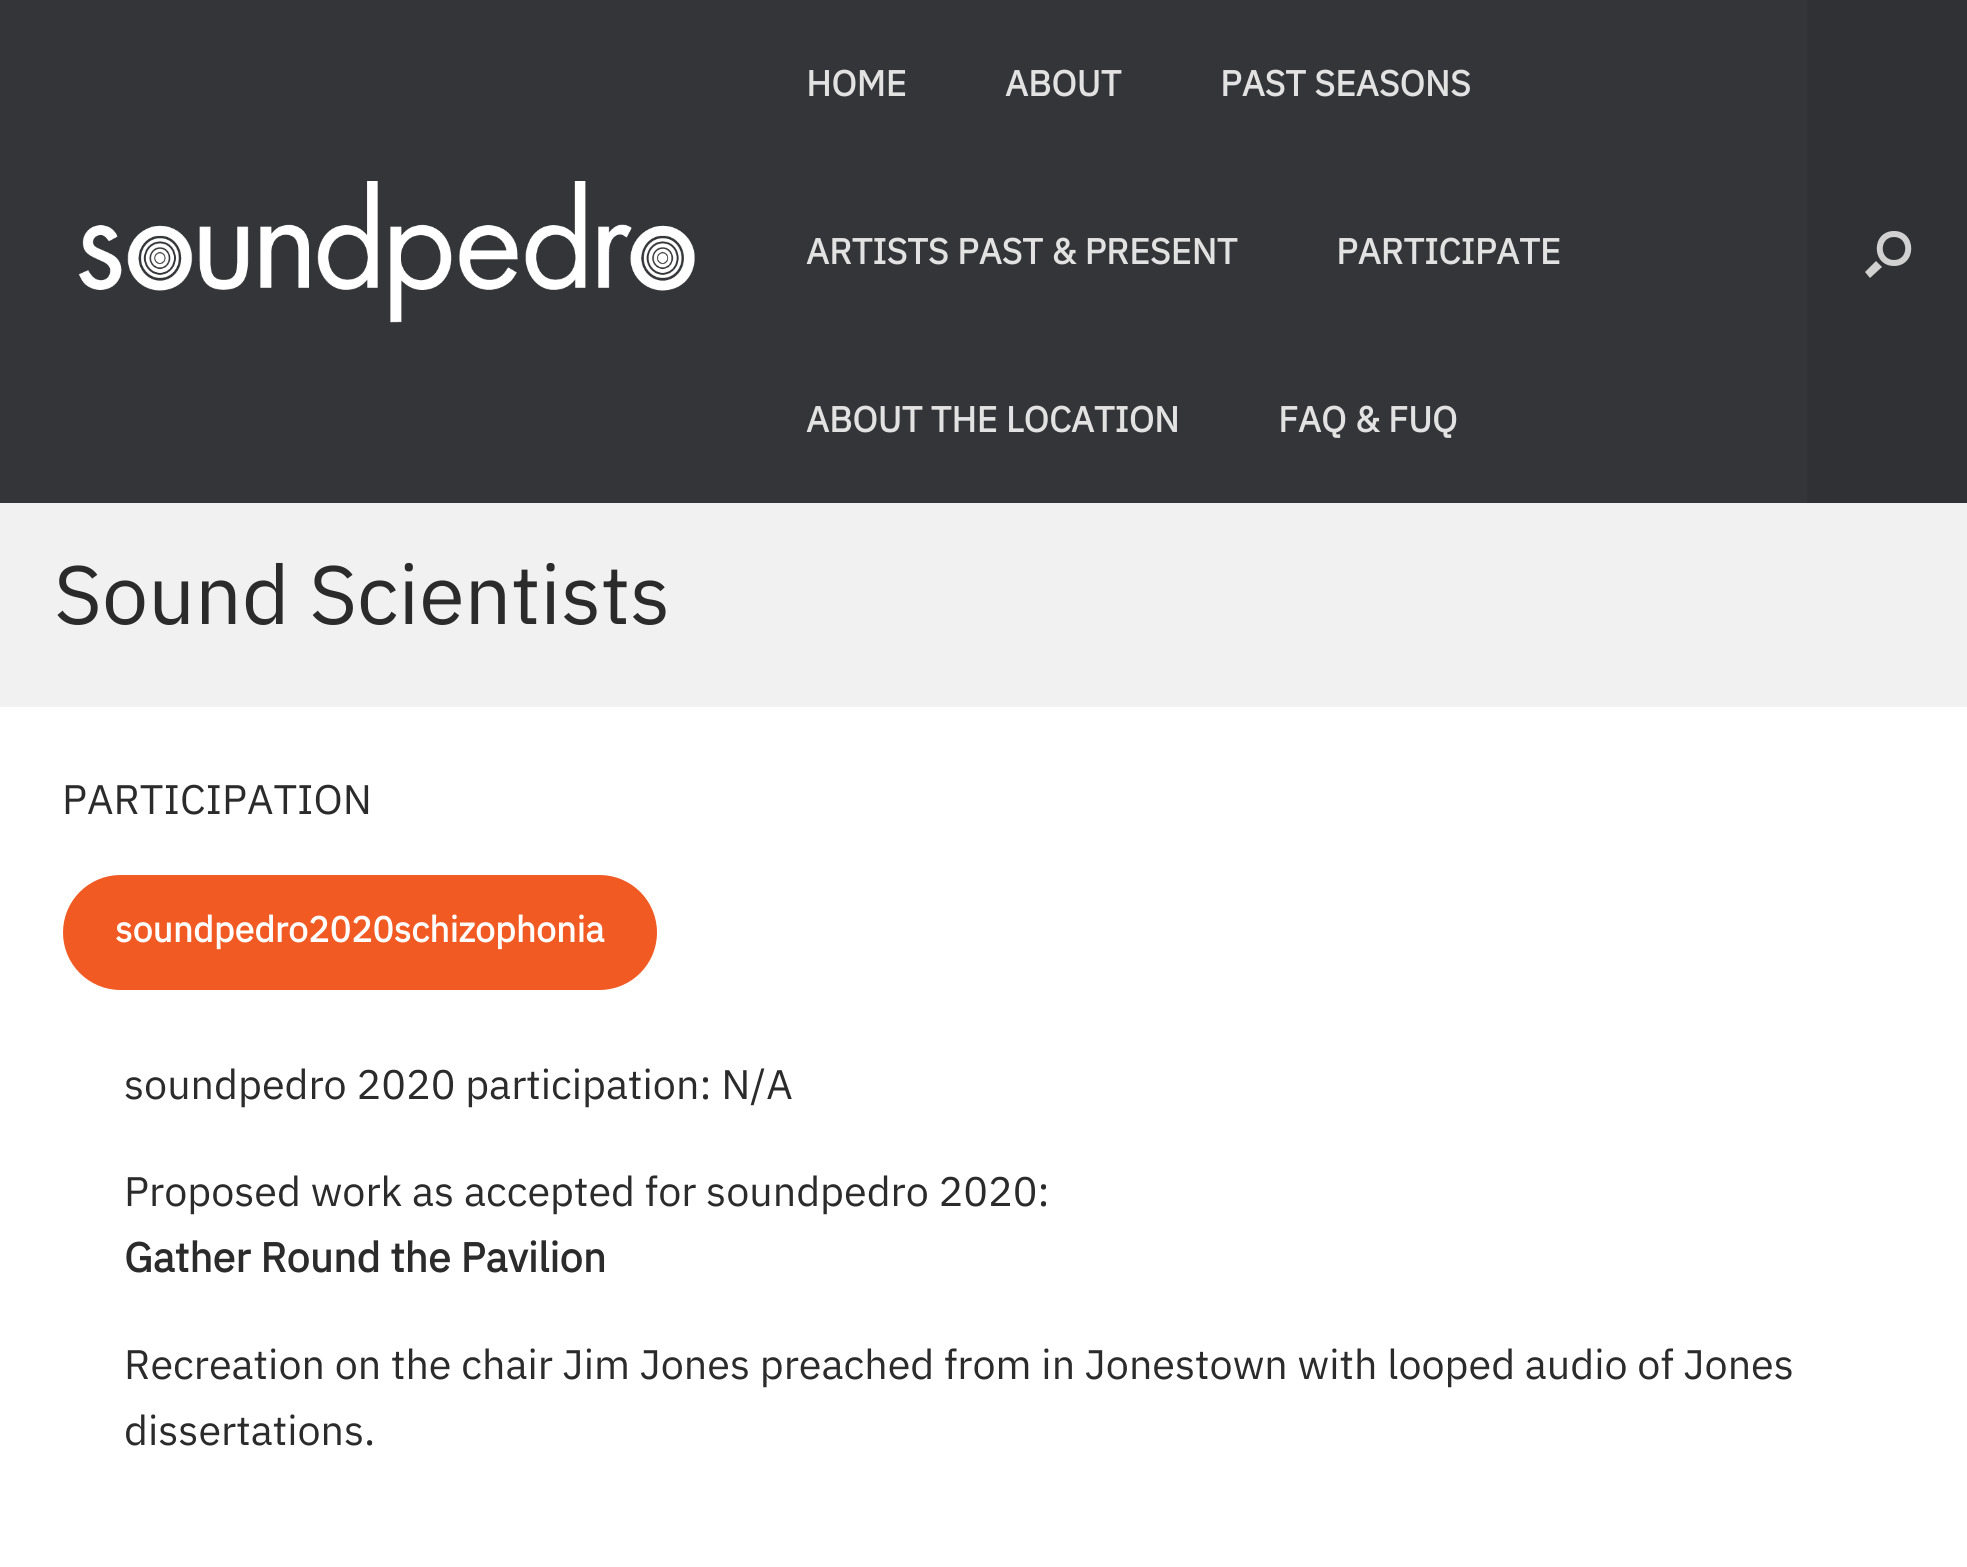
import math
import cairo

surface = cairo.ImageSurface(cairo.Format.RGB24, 1967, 1567)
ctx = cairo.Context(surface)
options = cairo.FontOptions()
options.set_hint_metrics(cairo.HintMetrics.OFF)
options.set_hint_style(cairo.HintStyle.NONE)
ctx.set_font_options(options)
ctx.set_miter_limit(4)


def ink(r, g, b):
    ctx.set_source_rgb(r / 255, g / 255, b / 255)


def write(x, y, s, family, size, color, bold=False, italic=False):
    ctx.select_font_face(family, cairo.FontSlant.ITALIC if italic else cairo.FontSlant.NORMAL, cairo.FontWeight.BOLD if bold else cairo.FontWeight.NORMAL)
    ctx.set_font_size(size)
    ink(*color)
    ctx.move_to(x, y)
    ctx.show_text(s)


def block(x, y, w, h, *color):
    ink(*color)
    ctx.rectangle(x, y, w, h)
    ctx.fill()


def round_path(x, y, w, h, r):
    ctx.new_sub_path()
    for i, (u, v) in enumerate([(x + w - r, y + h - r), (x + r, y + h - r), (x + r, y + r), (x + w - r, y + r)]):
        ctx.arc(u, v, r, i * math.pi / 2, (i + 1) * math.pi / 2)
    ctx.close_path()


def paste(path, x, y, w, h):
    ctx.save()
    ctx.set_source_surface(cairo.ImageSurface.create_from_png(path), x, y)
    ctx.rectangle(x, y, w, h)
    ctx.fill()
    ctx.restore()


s1 = dict(family="IBM Plex Sans", size=35.75, color=(226, 226, 226), bold=True)
s2 = dict(family="IBM Plex Sans", size=82.5, color=(43, 43, 43))
s3 = dict(family="IBM Plex Sans", size=41.25, color=(43, 43, 43))
s4 = dict(family="IBM Plex Sans", size=35.75, color=(255, 255, 255), bold=True)
s5 = dict(family="IBM Plex Sans", size=41.25, color=(43, 43, 43), bold=True)

ink(241, 241, 241)
ctx.paint()
block(0, 0, 1807, 503, 52, 53, 56)
paste("pic1.png", 78, 181, 617, 142)
write(806, 96, "HOME", **s1)
write(1005, 96, "ABOUT", **s1)
write(1220, 96, "PAST SEASONS", **s1)
write(806, 264, "ARTISTS PAST & PRESENT", **s1)
write(1336, 264, "PARTICIPATE", **s1)
write(806, 432, "ABOUT THE LOCATION", **s1)
write(1278, 432, "FAQ & FUQ", **s1)
block(1807, 0, 160, 503, 48, 49, 52)
ink(209, 209, 209)
ctx.new_path()
ctx.move_to(1894, 237)
ctx.curve_to(1909, 237, 1909, 260, 1894, 260)
ctx.curve_to(1879, 260, 1879, 237, 1894, 237)
ctx.close_path()
ctx.move_to(1894, 231)
ctx.curve_to(1871, 231, 1871, 266, 1894, 266)
ctx.curve_to(1917, 266, 1917, 231, 1894, 231)
ctx.close_path()
ctx.move_to(1876, 261)
ctx.line_to(1882, 267)
ctx.line_to(1870, 278)
ctx.line_to(1865, 272)
ctx.close_path()
ctx.fill()
write(54, 624, "Sound Scientists", **s2)
block(0, 707, 1967, 860, 255, 255, 255)
write(62, 814, "PARTICIPATION", **s3)
ink(241, 90, 35)
round_path(63, 875, 594, 115, 57.5)
ctx.fill()
write(115, 942, "soundpedro2020schizophonia", **s4)
write(124, 1099, "soundpedro 2020 participation: N/A", **s3)
write(124, 1206, "Proposed work as accepted for soundpedro 2020:", **s3)
write(124, 1272, "Gather Round the Pavilion", **s5)
write(124, 1379, "Recreation on the chair Jim Jones preached from in Jonestown with looped audio of Jones", **s3)
write(124, 1445, "dissertations.", **s3)
surface.write_to_png("screenshot.png")
